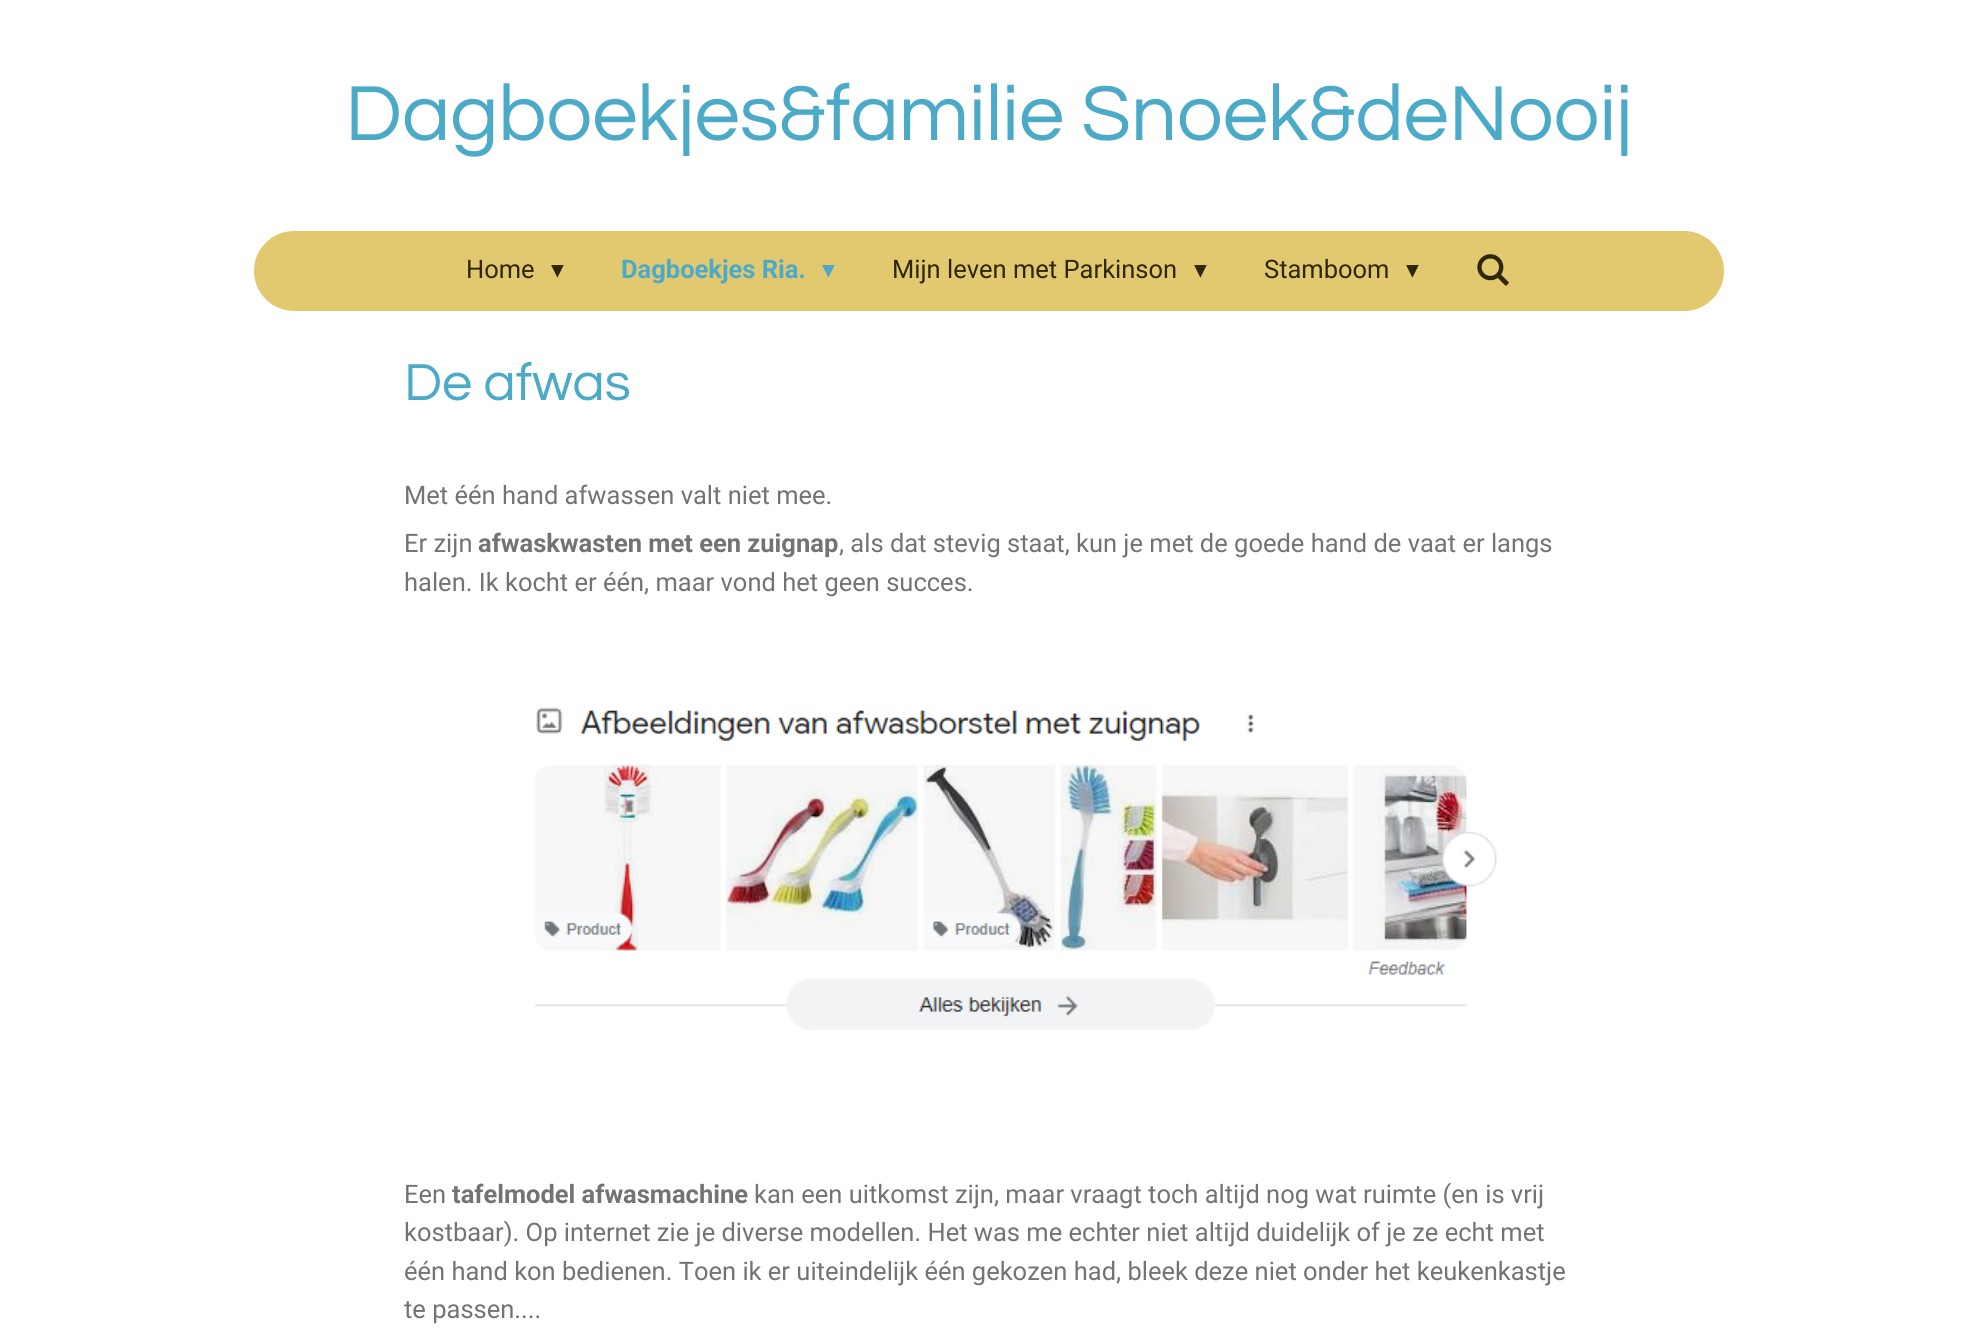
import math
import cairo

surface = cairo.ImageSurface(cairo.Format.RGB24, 1976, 1329)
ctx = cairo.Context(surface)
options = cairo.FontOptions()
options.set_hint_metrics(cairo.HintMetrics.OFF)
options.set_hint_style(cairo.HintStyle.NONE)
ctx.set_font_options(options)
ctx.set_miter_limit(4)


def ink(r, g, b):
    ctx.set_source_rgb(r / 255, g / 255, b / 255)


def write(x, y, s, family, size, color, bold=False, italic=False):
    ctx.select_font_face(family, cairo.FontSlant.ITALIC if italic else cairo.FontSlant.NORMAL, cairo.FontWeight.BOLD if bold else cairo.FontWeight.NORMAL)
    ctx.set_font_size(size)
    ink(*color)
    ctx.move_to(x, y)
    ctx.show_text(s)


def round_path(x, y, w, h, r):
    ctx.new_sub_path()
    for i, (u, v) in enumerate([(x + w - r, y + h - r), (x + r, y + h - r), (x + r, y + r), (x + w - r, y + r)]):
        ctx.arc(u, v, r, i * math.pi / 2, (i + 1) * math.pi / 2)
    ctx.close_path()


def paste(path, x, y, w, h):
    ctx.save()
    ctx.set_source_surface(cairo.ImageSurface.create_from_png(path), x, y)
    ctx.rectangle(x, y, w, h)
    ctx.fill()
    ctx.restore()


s1 = dict(family="Questrial", size=81, color=(76, 170, 201))
s2 = dict(family="Roboto", size=25.5, color=(47, 39, 9))
s3 = dict(family="DejaVu Sans", size=25.5, color=(47, 39, 9))
s4 = dict(family="Roboto", size=25.5, color=(76, 170, 201), bold=True)
s5 = dict(family="DejaVu Sans", size=25.5, color=(76, 170, 201))
s6 = dict(family="Questrial", size=54, color=(76, 170, 201))
s7 = dict(family="Roboto", size=25.5, color=(115, 115, 115))
s8 = dict(family="Roboto", size=25.5, color=(115, 115, 115), bold=True)

ink(255, 255, 255)
ctx.paint()
write(345, 140, "Dagboekjes&familie Snoek&deNooij", **s1)
ink(226, 200, 111)
round_path(254, 231, 1470, 80, 40)
ctx.fill()
write(466, 278, "Home", **s2)
write(551, 278, "▾", **s3)
write(621, 278, "Dagboekjes Ria.", **s4)
write(822, 278, "▾", **s5)
write(892, 278, "Mijn leven met Parkinson", **s2)
write(1194, 278, "▾", **s3)
write(1264, 278, "Stamboom", **s2)
write(1406, 278, "▾", **s3)
paste("pic1.png", 1477, 254, 33, 32)
write(404, 400, "De afwas", **s6)
write(404, 504, "Met één hand afwassen valt niet mee.", **s7)
write(404, 552, "Er zijn", **s7)
write(478, 552, "afwaskwasten met een zuignap", **s8)
write(839, 552, ", als dat stevig staat, kun je met de goede hand de vaat er langs", **s7)
write(404, 591, "halen. Ik kocht er één, maar vond het geen succes.", **s7)
paste("pic2.png", 534, 707, 963, 323)
write(404, 1203, "Een", **s7)
write(452, 1203, "tafelmodel afwasmachine", **s8)
write(754, 1203, "kan een uitkomst zijn, maar vraagt toch altijd nog wat ruimte (en is vrij", **s7)
write(404, 1241, "kostbaar). Op internet zie je diverse modellen. Het was me echter niet altijd duidelijk of je ze echt met", **s7)
write(404, 1280, "één hand kon bedienen. Toen ik er uiteindelijk één gekozen had, bleek deze niet onder het keukenkastje", **s7)
write(404, 1318, "te passen....", **s7)
surface.write_to_png("screenshot.png")
